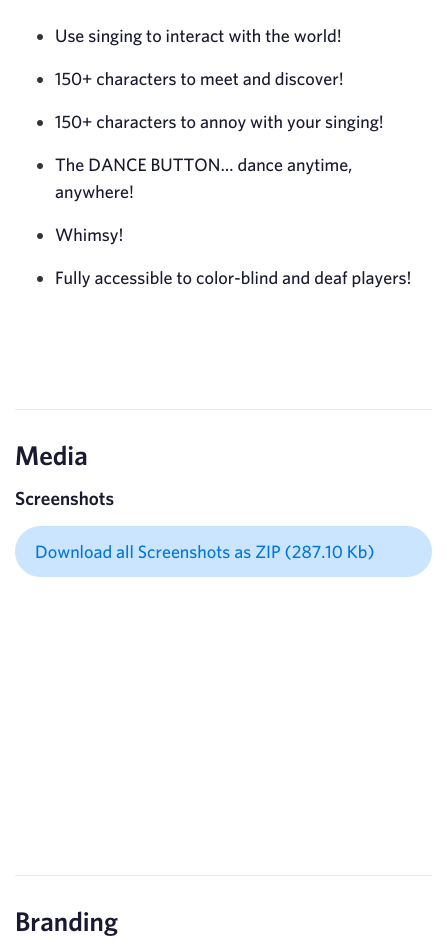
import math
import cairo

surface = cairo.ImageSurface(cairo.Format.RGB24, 447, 942)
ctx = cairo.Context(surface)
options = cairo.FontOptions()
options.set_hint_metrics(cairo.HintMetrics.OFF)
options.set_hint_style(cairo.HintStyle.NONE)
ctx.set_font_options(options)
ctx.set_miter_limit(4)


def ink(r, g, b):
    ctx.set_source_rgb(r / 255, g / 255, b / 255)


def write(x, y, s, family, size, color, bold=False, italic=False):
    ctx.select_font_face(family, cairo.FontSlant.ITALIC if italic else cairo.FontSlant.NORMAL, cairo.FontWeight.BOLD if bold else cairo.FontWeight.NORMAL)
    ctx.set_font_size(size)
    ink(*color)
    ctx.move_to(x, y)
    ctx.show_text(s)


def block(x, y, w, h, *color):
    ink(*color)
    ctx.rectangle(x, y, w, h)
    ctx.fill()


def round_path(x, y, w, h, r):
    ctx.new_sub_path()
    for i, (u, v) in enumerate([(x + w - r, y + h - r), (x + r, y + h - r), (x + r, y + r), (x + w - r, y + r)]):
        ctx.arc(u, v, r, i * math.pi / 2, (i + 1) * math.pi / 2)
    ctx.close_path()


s1 = dict(family="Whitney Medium", size=18, color=(25, 25, 47))
s2 = dict(family="Whitney SemiBold", size=27, color=(25, 25, 47))
s3 = dict(family="Whitney SemiBold", size=19, color=(25, 25, 47))
s4 = dict(family="Whitney Medium", size=18, color=(0, 119, 221))

ink(255, 255, 255)
ctx.paint()
ink(51, 51, 51)
ctx.arc(40, 37, 3, 0, 2 * math.pi)
ctx.fill()
write(55, 42, "Use singing to interact with the world!", **s1)
ink(51, 51, 51)
ctx.new_path()
ctx.arc(40, 80, 3, 0, 2 * math.pi)
ctx.fill()
write(55, 85, "150+ characters to meet and discover!", **s1)
ink(51, 51, 51)
ctx.new_path()
ctx.arc(40, 123, 3, 0, 2 * math.pi)
ctx.fill()
write(55, 128, "150+ characters to annoy with your singing!", **s1)
ink(51, 51, 51)
ctx.new_path()
ctx.arc(40, 166, 3, 0, 2 * math.pi)
ctx.fill()
write(55, 171, "The DANCE BUTTON… dance anytime,", **s1)
write(55, 198, "anywhere!", **s1)
ink(51, 51, 51)
ctx.new_path()
ctx.arc(40, 236, 3, 0, 2 * math.pi)
ctx.fill()
write(55, 241, "Whimsy!", **s1)
ink(51, 51, 51)
ctx.new_path()
ctx.arc(40, 279, 3, 0, 2 * math.pi)
ctx.fill()
write(55, 284, "Fully accessible to color-blind and deaf players!", **s1)
block(15, 409, 417, 1, 233, 236, 239)
write(15, 465, "Media", **s2)
write(15, 505, "Screenshots", **s3)
ink(204, 229, 255)
round_path(15, 526, 417, 51, 25.5)
ctx.fill()
write(35, 558, "Download all Screenshots as ZIP (287.10 Kb)", **s4)
block(15, 875, 417, 1, 233, 236, 239)
write(15, 931, "Branding", **s2)
surface.write_to_png("screenshot.png")
